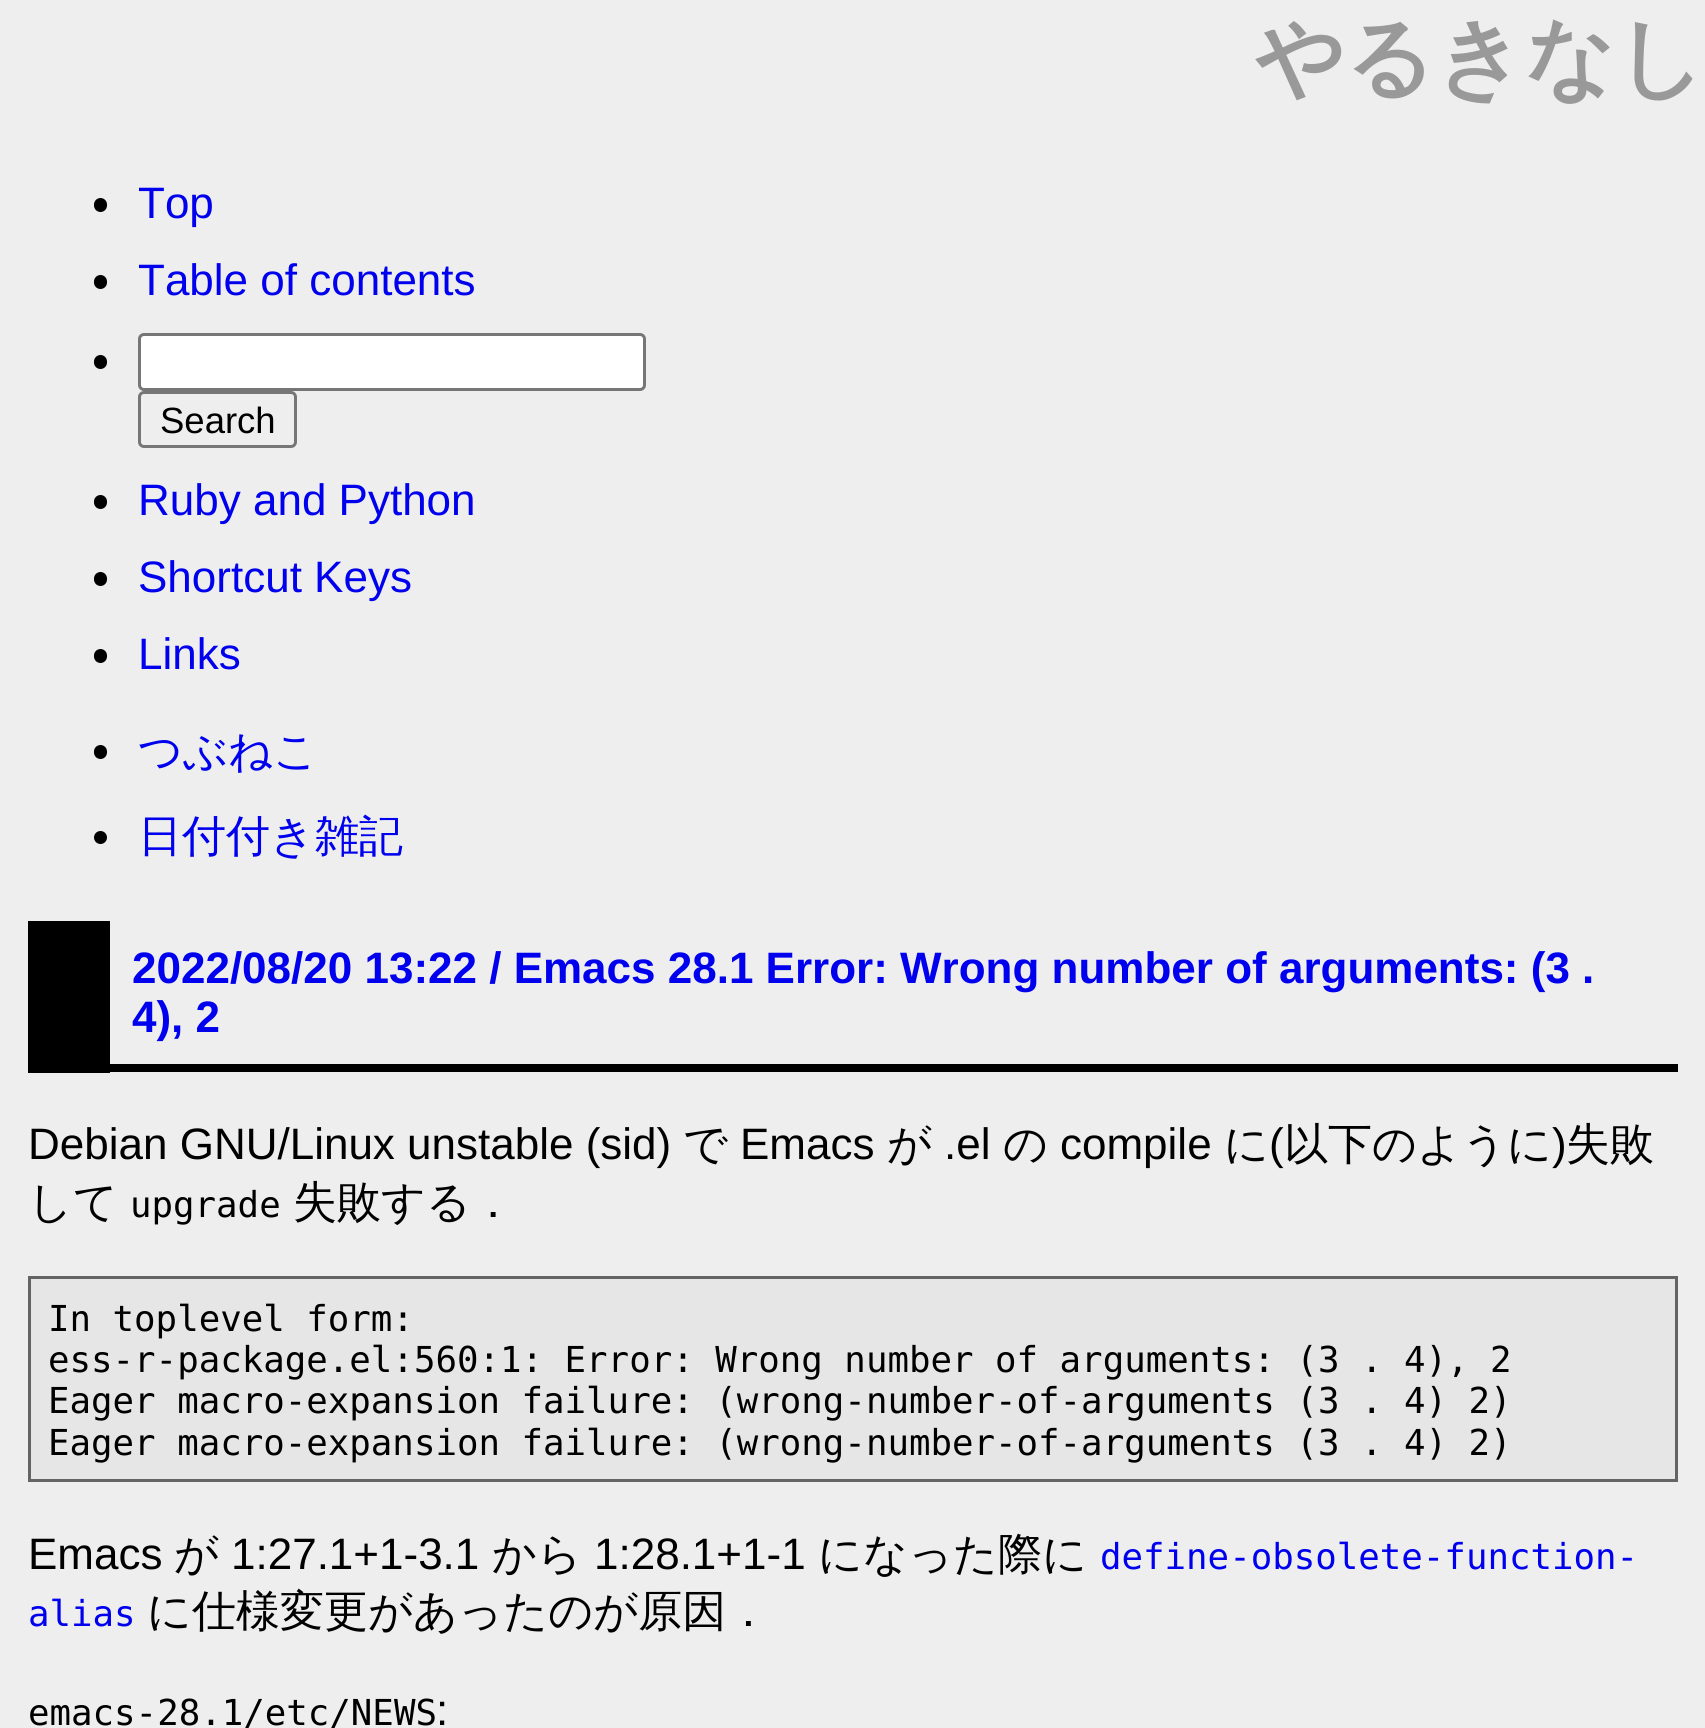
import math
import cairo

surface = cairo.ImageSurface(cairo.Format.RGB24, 1705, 1728)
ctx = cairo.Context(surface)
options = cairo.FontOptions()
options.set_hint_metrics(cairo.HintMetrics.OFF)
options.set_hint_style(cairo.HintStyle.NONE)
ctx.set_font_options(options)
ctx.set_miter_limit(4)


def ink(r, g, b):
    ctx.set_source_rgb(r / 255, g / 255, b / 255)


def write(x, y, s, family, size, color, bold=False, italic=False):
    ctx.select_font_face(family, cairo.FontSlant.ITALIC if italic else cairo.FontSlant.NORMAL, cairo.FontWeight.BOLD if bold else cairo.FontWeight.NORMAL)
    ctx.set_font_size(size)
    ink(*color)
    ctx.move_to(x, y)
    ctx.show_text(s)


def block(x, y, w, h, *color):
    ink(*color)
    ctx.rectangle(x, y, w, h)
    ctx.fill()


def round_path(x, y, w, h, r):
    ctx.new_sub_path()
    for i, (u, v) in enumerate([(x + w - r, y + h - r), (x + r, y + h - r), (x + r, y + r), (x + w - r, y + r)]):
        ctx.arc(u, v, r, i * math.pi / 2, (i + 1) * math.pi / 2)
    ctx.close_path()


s1 = dict(family="WenQuanYi Zen Hei", size=88, color=(153, 153, 153), bold=True)
s2 = dict(family="Liberation Sans", size=44, color=(0, 0, 238))
s3 = dict(family="Liberation Sans", size=36.5, color=(0, 0, 0))
s4 = dict(family="WenQuanYi Zen Hei Medium", size=44, color=(0, 0, 238))
s5 = dict(family="Liberation Sans", size=44, color=(0, 0, 238), bold=True)
s6 = dict(family="Liberation Sans", size=44, color=(0, 0, 0))
s7 = dict(family="WenQuanYi Zen Hei Medium", size=44, color=(0, 0, 0))
s8 = dict(family="DejaVu Sans Mono", size=35.75, color=(0, 0, 0))
s9 = dict(family="DejaVu Sans Mono", size=35.75, color=(0, 0, 238))

ink(238, 238, 238)
ctx.paint()
write(1255, 88, "やるきなし", **s1)
ink(0, 0, 0)
round_path(94, 198, 13, 14, 6.5)
ctx.fill()
write(138, 218, "Top", **s2)
ink(0, 0, 0)
round_path(94, 275, 13, 14, 6.5)
ctx.fill()
write(138, 295, "Table of contents", **s2)
ink(0, 0, 0)
round_path(94, 355, 13, 14, 6.5)
ctx.fill()
ink(255, 255, 255)
round_path(139.5, 334.5, 505, 55, 4.5)
ctx.fill_preserve()
ink(118, 118, 118)
ctx.set_line_width(3)
ctx.stroke()
round_path(139.5, 392.5, 156, 54, 4.5)
ctx.stroke()
write(160, 433, "Search", **s3)
round_path(94, 495, 13, 14, 6.5)
ctx.fill()
write(138, 515, "Ruby and Python", **s2)
ink(0, 0, 0)
round_path(94, 572, 13, 14, 6.5)
ctx.fill()
write(138, 592, "Shortcut Keys", **s2)
ink(0, 0, 0)
round_path(94, 649, 13, 14, 6.5)
ctx.fill()
write(138, 669, "Links", **s2)
ink(0, 0, 0)
round_path(94, 745, 13, 14, 6.5)
ctx.fill()
write(138, 766, "つぶねこ", **s4)
ink(0, 0, 0)
ctx.new_path()
ctx.arc(100.5, 837.5, 6.5, 0, 2 * math.pi)
ctx.fill()
write(138, 851, "日付付き雑記", **s4)
block(110, 1064, 1568, 8, 0, 0, 0)
block(28, 921, 82, 152, 0, 0, 0)
write(132, 983, "2022/08/20 13:22 / Emacs 28.1 Error: Wrong number of arguments: (3 .", **s5)
write(132, 1032, "4), 2", **s5)
write(28, 1159, "Debian GNU/Linux unstable (sid)", **s6)
write(683, 1159, "で", **s7)
write(740, 1159, "Emacs", **s6)
write(887, 1159, "が", **s7)
write(944, 1159, ".el", **s6)
write(1003, 1159, "の", **s7)
write(1060, 1159, "compile", **s6)
write(1224, 1159, "に", **s7)
write(1269, 1159, "(", **s6)
write(1284, 1159, "以下のように", **s7)
write(1552, 1159, ")", **s6)
write(1566, 1159, "失敗", **s7)
write(28, 1217, "して", **s7)
write(130, 1217, "upgrade", **s8)
write(293, 1217, "失敗する．", **s7)
ink(230, 230, 230)
ctx.rectangle(29.5, 1277.5, 1647, 203)
ctx.fill_preserve()
ink(100, 100, 100)
ctx.stroke()
write(48, 1331, "In toplevel form:", **s8)
write(48, 1372, "ess-r-package.el:560:1: Error: Wrong number of arguments: (3 . 4), 2", **s8)
write(48, 1413, "Eager macro-expansion failure: (wrong-number-of-arguments (3 . 4) 2)", **s8)
write(48, 1455, "Eager macro-expansion failure: (wrong-number-of-arguments (3 . 4) 2)", **s8)
write(28, 1569, "Emacs", **s6)
write(174, 1569, "が", **s7)
write(231, 1569, "1:27.1+1-3.1", **s6)
write(492, 1569, "から", **s7)
write(594, 1569, "1:28.1+1-1", **s6)
write(818, 1569, "になった際に", **s7)
write(1100, 1569, "define-obsolete-function-", **s9)
write(28, 1626, "alias", **s9)
write(147, 1626, "に仕様変更があったのが原因．", **s7)
write(28, 1725, "emacs-28.1/etc/NEWS", **s8)
write(436, 1725, ":", **s6)
surface.write_to_png("screenshot.png")
